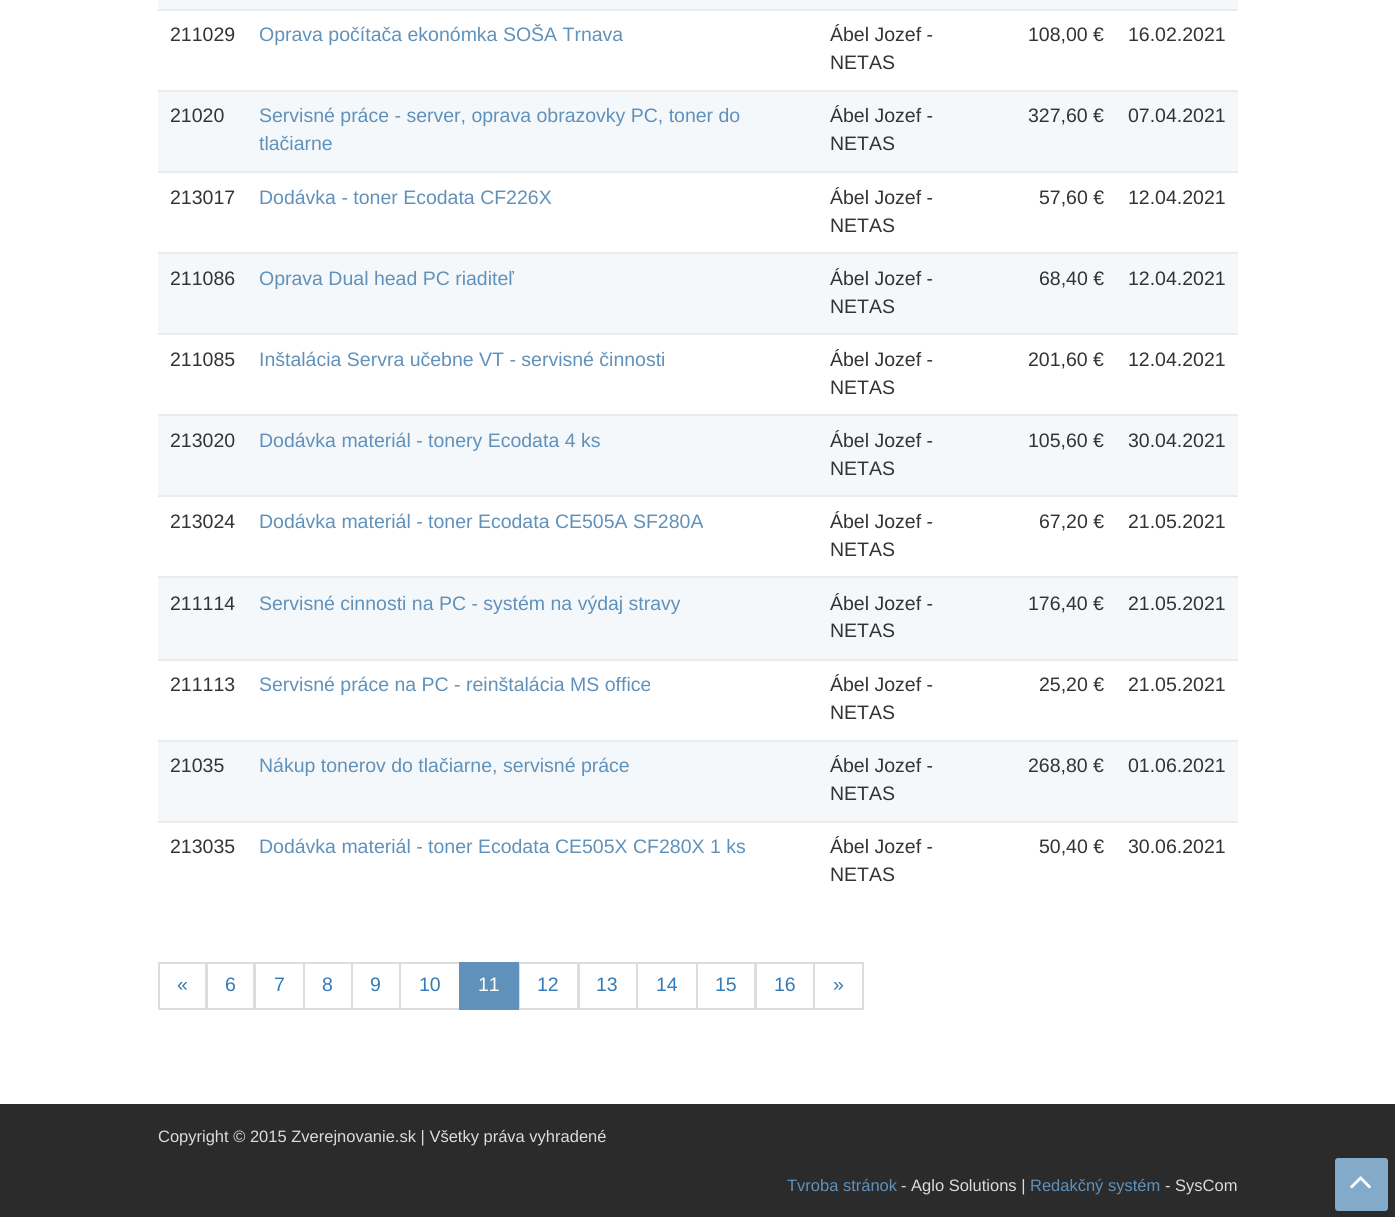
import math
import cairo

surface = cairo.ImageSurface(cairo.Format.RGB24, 1395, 1217)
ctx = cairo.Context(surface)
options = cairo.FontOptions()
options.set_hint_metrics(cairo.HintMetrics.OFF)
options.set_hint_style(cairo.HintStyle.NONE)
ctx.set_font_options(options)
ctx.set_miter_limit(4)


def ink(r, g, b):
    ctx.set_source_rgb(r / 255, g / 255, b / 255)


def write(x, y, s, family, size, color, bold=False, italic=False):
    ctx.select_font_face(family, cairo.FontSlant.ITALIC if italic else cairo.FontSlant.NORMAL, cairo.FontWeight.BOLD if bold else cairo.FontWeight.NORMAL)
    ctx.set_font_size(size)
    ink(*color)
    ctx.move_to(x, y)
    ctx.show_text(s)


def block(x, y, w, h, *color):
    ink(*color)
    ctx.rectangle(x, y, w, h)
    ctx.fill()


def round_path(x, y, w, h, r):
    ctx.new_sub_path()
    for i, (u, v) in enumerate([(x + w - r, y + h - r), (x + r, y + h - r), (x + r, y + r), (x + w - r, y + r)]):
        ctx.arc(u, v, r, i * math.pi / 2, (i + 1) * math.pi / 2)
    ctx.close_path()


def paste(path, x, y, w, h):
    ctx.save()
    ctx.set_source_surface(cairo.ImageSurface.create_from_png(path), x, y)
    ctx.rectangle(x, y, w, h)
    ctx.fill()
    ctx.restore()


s1 = dict(family="Liberation Sans", size=19.5, color=(51, 51, 51))
s2 = dict(family="Liberation Sans", size=19.5, color=(96, 145, 186))
s3 = dict(family="Liberation Sans", size=19.5, color=(51, 122, 183))
s4 = dict(family="Liberation Sans", size=19.5, color=(255, 255, 255))
s5 = dict(family="Liberation Sans", size=16.5, color=(220, 220, 220))
s6 = dict(family="Liberation Sans", size=16.5, color=(96, 145, 186))

ink(255, 255, 255)
ctx.paint()
block(158, 0, 1080, 9, 245, 248, 251)
write(170, 41, "211029", **s1)
write(259, 41, "Oprava počítača ekonómka SOŠA Trnava", **s2)
write(830, 41, "Ábel Jozef -", **s1)
write(830, 69, "NETAS", **s1)
write(1028, 41, "108,00 €", **s1)
block(158, 9, 1080, 2, 235, 235, 235)
write(1128, 41, "16.02.2021", **s1)
block(158, 92, 1080, 79, 245, 248, 251)
write(170, 122, "21020", **s1)
write(259, 122, "Servisné práce - server, oprava obrazovky PC, toner do", **s2)
write(259, 150, "tlačiarne", **s2)
write(830, 122, "Ábel Jozef -", **s1)
write(830, 150, "NETAS", **s1)
write(1028, 122, "327,60 €", **s1)
block(158, 90, 1080, 2, 235, 235, 235)
write(1128, 122, "07.04.2021", **s1)
write(170, 204, "213017", **s1)
write(259, 204, "Dodávka - toner Ecodata CF226X", **s2)
write(830, 204, "Ábel Jozef -", **s1)
write(830, 232, "NETAS", **s1)
write(1039, 204, "57,60 €", **s1)
block(158, 171, 1080, 2, 235, 235, 235)
write(1128, 204, "12.04.2021", **s1)
block(158, 254, 1080, 79, 245, 248, 251)
write(170, 285, "211086", **s1)
write(259, 285, "Oprava Dual head PC riaditeľ", **s2)
write(830, 285, "Ábel Jozef -", **s1)
write(830, 313, "NETAS", **s1)
write(1039, 285, "68,40 €", **s1)
block(158, 252, 1080, 2, 235, 235, 235)
write(1128, 285, "12.04.2021", **s1)
write(170, 366, "211085", **s1)
write(259, 366, "Inštalácia Servra učebne VT - servisné činnosti", **s2)
write(830, 366, "Ábel Jozef -", **s1)
write(830, 394, "NETAS", **s1)
write(1028, 366, "201,60 €", **s1)
block(158, 333, 1080, 2, 235, 235, 235)
write(1128, 366, "12.04.2021", **s1)
block(158, 416, 1080, 79, 245, 248, 251)
write(170, 447, "213020", **s1)
write(259, 447, "Dodávka materiál - tonery Ecodata 4 ks", **s2)
write(830, 447, "Ábel Jozef -", **s1)
write(830, 475, "NETAS", **s1)
write(1028, 447, "105,60 €", **s1)
block(158, 414, 1080, 2, 235, 235, 235)
write(1128, 447, "30.04.2021", **s1)
write(170, 528, "213024", **s1)
write(259, 528, "Dodávka materiál - toner Ecodata CE505A SF280A", **s2)
write(830, 528, "Ábel Jozef -", **s1)
write(830, 556, "NETAS", **s1)
write(1039, 528, "67,20 €", **s1)
block(158, 495, 1080, 2, 235, 235, 235)
write(1128, 528, "21.05.2021", **s1)
block(158, 578, 1080, 81, 245, 248, 251)
write(170, 610, "211114", **s1)
write(259, 610, "Servisné cinnosti na PC - systém na výdaj stravy", **s2)
write(830, 610, "Ábel Jozef -", **s1)
write(830, 637, "NETAS", **s1)
write(1028, 610, "176,40 €", **s1)
block(158, 576, 1080, 2, 235, 235, 235)
write(1128, 610, "21.05.2021", **s1)
write(170, 691, "211113", **s1)
write(259, 691, "Servisné práce na PC - reinštalácia MS office", **s2)
write(830, 691, "Ábel Jozef -", **s1)
write(830, 719, "NETAS", **s1)
write(1039, 691, "25,20 €", **s1)
block(158, 659, 1080, 2, 235, 235, 235)
write(1128, 691, "21.05.2021", **s1)
block(158, 742, 1080, 79, 245, 248, 251)
write(170, 772, "21035", **s1)
write(259, 772, "Nákup tonerov do tlačiarne, servisné práce", **s2)
write(830, 772, "Ábel Jozef -", **s1)
write(830, 800, "NETAS", **s1)
write(1028, 772, "268,80 €", **s1)
block(158, 740, 1080, 2, 235, 235, 235)
write(1128, 772, "01.06.2021", **s1)
write(170, 853, "213035", **s1)
write(259, 853, "Dodávka materiál - toner Ecodata CE505X CF280X 1 ks", **s2)
write(830, 853, "Ábel Jozef -", **s1)
write(830, 881, "NETAS", **s1)
write(1039, 853, "50,40 €", **s1)
block(158, 821, 1080, 2, 235, 235, 235)
write(1128, 853, "30.06.2021", **s1)
ctx.rectangle(159, 963, 47, 46)
ink(221, 221, 221)
ctx.stroke()
write(177, 991, "«", **s3)
ctx.rectangle(207, 963, 47, 46)
ink(221, 221, 221)
ctx.stroke()
write(225, 991, "6", **s3)
ctx.rectangle(255, 963, 49, 46)
ink(221, 221, 221)
ctx.stroke()
write(274, 991, "7", **s3)
ctx.rectangle(304, 963, 48, 46)
ink(221, 221, 221)
ctx.stroke()
write(322, 991, "8", **s3)
ctx.rectangle(352, 963, 48, 46)
ink(221, 221, 221)
ctx.stroke()
write(370, 991, "9", **s3)
ctx.rectangle(400, 963, 60, 46)
ink(221, 221, 221)
ctx.stroke()
write(419, 991, "10", **s3)
ctx.rectangle(519, 963, 59, 46)
ink(221, 221, 221)
ctx.stroke()
block(459, 962, 60, 48, 96, 145, 186)
write(478, 991, "11", **s4)
write(537, 991, "12", **s3)
ctx.rectangle(579, 963, 58, 46)
ink(221, 221, 221)
ctx.stroke()
write(596, 991, "13", **s3)
ctx.rectangle(637, 963, 60, 46)
ink(221, 221, 221)
ctx.stroke()
write(656, 991, "14", **s3)
ctx.rectangle(697, 963, 58, 46)
ink(221, 221, 221)
ctx.stroke()
write(715, 991, "15", **s3)
ctx.rectangle(756, 963, 58, 46)
ink(221, 221, 221)
ctx.stroke()
write(774, 991, "16", **s3)
ctx.rectangle(814, 963, 49, 46)
ink(221, 221, 221)
ctx.stroke()
write(833, 991, "»", **s3)
block(0, 1104, 1395, 113, 43, 43, 43)
write(158, 1142, "Copyright © 2015 Zverejnovanie.sk | Všetky práva vyhradené", **s5)
write(787, 1191, "Tvroba stránok", **s6)
write(901, 1191, "- Aglo Solutions |", **s5)
write(1030, 1191, "Redakčný systém", **s6)
write(1165, 1191, "- SysCom", **s5)
ink(132, 170, 201)
round_path(1335, 1158, 53, 53, 3)
ctx.fill()
paste("pic1.png", 1350, 1176, 21, 13)
surface.write_to_png("screenshot.png")
